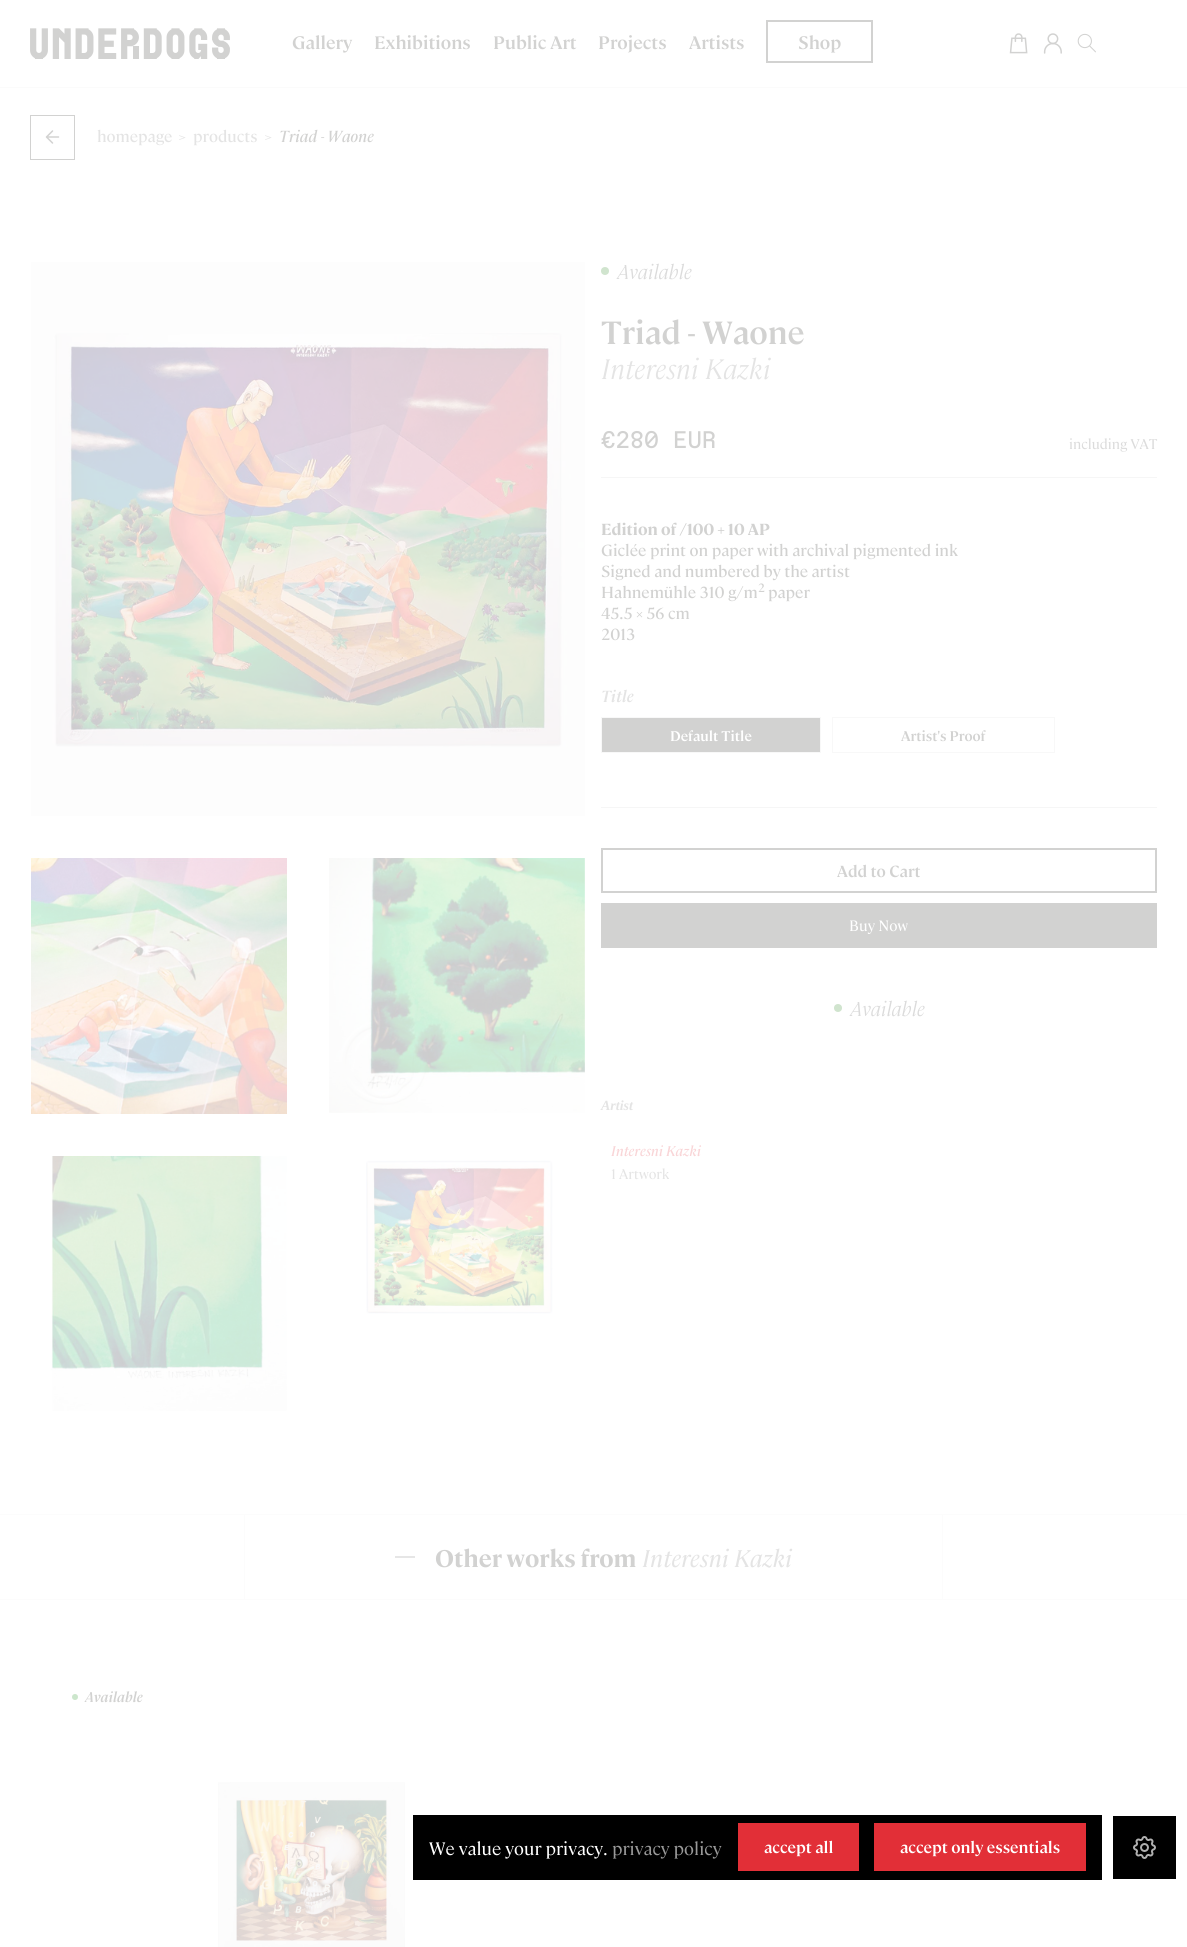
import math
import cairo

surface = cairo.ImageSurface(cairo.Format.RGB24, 1187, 1947)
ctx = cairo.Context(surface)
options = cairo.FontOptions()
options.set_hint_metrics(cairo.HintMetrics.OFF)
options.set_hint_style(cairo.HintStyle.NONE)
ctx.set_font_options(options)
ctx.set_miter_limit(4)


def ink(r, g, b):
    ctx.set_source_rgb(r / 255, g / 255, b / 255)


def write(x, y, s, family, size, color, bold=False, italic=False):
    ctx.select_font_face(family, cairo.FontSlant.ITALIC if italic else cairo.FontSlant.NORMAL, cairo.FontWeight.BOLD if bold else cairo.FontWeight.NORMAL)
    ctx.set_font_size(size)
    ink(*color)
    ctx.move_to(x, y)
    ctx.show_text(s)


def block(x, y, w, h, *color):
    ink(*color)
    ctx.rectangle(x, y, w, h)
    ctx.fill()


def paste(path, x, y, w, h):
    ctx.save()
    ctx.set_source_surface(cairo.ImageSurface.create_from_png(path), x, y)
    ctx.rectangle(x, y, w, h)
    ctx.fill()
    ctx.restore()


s1 = dict(family="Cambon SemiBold", size=18, color=(210, 210, 209))
s2 = dict(family="Cambon Medium", size=16, color=(228, 228, 228))
s3 = dict(family="Cambon Medium", size=16, color=(210, 210, 209), italic=True)
s4 = dict(family="Cambon Light", size=20, color=(219, 219, 219), italic=True)
s5 = dict(family="Cambon SemiBold", size=32, color=(210, 210, 209))
s6 = dict(family="Cambon Light", size=28, color=(228, 228, 228), italic=True)
s7 = dict(family="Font", size=24, color=(210, 210, 209))
s8 = dict(family="Cambon", size=14, color=(219, 219, 219))
s9 = dict(family="Cambon", size=16, color=(210, 210, 209), bold=True)
s10 = dict(family="Cambon Medium", size=16, color=(210, 210, 209))
s11 = dict(family="Cambon Medium", size=12, color=(210, 210, 209))
s12 = dict(family="Cambon SemiBold", size=16, color=(228, 228, 228), italic=True)
s13 = dict(family="Cambon SemiBold", size=14, color=(255, 255, 255))
s14 = dict(family="Cambon SemiBold", size=14, color=(210, 210, 209))
s15 = dict(family="Cambon SemiBold", size=16, color=(210, 210, 209))
s16 = dict(family="Cambon", size=15, color=(255, 255, 255))
s17 = dict(family="Liberation Serif", size=14, color=(228, 228, 228), bold=True, italic=True)
s18 = dict(family="Cambon Medium", size=14, color=(249, 213, 215), italic=True)
s19 = dict(family="Cambon", size=14, color=(228, 228, 228))
s20 = dict(family="Cambon", size=24, color=(210, 210, 209), bold=True)
s21 = dict(family="Cambon", size=24, color=(228, 228, 228), italic=True)
s22 = dict(family="Cambon SemiBold", size=14, color=(210, 210, 209), italic=True)
s23 = dict(family="Cambon", size=18, color=(255, 255, 255))
s24 = dict(family="Cambon", size=18, color=(153, 153, 153))
s25 = dict(family="Cambon SemiBold", size=16, color=(255, 255, 255))

ink(255, 255, 255)
ctx.paint()
block(0, 87, 1187, 1, 251, 251, 251)
paste("pic1.png", 30, 28, 200, 31)
write(292, 49, "Gallery", **s1)
write(374, 49, "Exhibitions", **s1)
write(493, 49, "Public Art", **s1)
write(598, 49, "Projects", **s1)
write(689, 49, "Artists", **s1)
ctx.rectangle(767, 21, 105, 41)
ctx.stroke()
write(798, 49, "Shop", **s1)
paste("pic2.png", 1009, 33, 19, 21)
paste("pic3.png", 1043, 33, 19, 21)
paste("pic4.png", 1077, 33, 19, 20)
ctx.new_path()
ctx.move_to(58.5, 137)
ctx.line_to(46.5, 137)
ctx.move_to(46.5, 137)
ctx.line_to(52.5, 143)
ctx.move_to(46.5, 137)
ctx.line_to(52.5, 131)
ctx.set_line_width(1.5)
ctx.set_line_cap(cairo.LineCap.ROUND)
ctx.set_line_join(cairo.LineJoin.ROUND)
ctx.stroke()
ctx.new_path()
ctx.move_to(30.5, 159.5)
ctx.line_to(74.5, 159.5)
ctx.line_to(74.5, 115.5)
ctx.line_to(30.5, 115.5)
ctx.close_path()
ctx.set_line_width(1)
ctx.set_line_cap(cairo.LineCap.BUTT)
ctx.set_line_join(cairo.LineJoin.MITER)
ctx.stroke()
write(97, 142, "homepage", **s2)
write(179, 142, ">", **s2)
write(193, 142, "products", **s2)
write(265, 142, ">", **s2)
write(279, 142, "Triad - Waone", **s3)
paste("pic5.png", 31, 262, 554, 554)
paste("pic6.png", 31, 858, 256, 256)
paste("pic7.png", 329, 858, 256, 255)
paste("pic8.png", 50, 1156, 237, 255)
paste("pic9.png", 366, 1160, 187, 154)
ink(208, 228, 206)
ctx.arc(605, 271, 4, 0, 2 * math.pi)
ctx.fill()
write(617, 279, "Available", **s4)
ink(208, 228, 206)
ctx.new_path()
ctx.arc(838, 1008, 4, 0, 2 * math.pi)
ctx.fill()
write(850, 1016, "Available", **s4)
write(601, 344, "Triad - Waone", **s5)
write(601, 379, "Interesni Kazki", **s6)
block(601, 477, 556, 1, 246, 246, 246)
write(601, 448, "€280 EUR", **s7)
write(1069, 449, "including VAT", **s8)
write(601, 535, "Edition of /100 + 10 AP", **s9)
write(601, 556, "Giclée print on paper with archival pigmented ink", **s10)
write(601, 577, "Signed and numbered by the artist", **s10)
write(601, 598, "Hahnemühle 310 g/m", **s10)
write(758, 592, "2", **s11)
write(768, 598, "paper", **s10)
write(601, 619, "45.5 × 56 cm", **s10)
write(601, 640, "2013", **s10)
block(601, 807, 556, 1, 246, 246, 246)
write(601, 702, "Title", **s12)
ink(210, 210, 209)
ctx.rectangle(601.5, 717.5, 219, 35)
ctx.fill_preserve()
ink(248, 248, 248)
ctx.stroke()
write(670, 741, "Default Title", **s13)
ctx.rectangle(832.5, 717.5, 222, 35)
ink(248, 248, 248)
ctx.stroke()
write(901, 741, "Artist's Proof", **s14)
ctx.rectangle(602, 849, 554, 43)
ctx.set_line_width(2)
ctx.stroke()
write(837, 877, "Add to Cart", **s15)
block(601, 903, 556, 45, 210, 210, 209)
write(849, 931, "Buy Now", **s16)
write(601, 1110, "Artist", **s17)
write(611, 1156, "Interesni Kazki", **s18)
write(611, 1179, "1 Artwork", **s19)
block(0, 1514, 1187, 1, 252, 252, 252)
block(0, 1599, 1187, 1, 252, 252, 252)
block(942, 1515, 1, 84, 252, 252, 252)
block(244, 1515, 1, 84, 252, 252, 252)
block(395, 1556, 20, 2, 230, 230, 230)
write(435, 1567, "Other works from", **s20)
write(642, 1567, "Interesni Kazki", **s21)
ink(204, 230, 204)
ctx.new_path()
ctx.arc(75, 1697, 3, 0, 2 * math.pi)
ctx.fill()
write(85, 1702, "Available", **s22)
paste("pic10.png", 218, 1782, 187, 165)
block(413, 1815, 689, 65, 0, 0, 0)
write(429, 1855, "We value your privacy.", **s23)
write(612, 1855, "privacy policy", **s24)
block(738, 1823, 121, 48, 226, 47, 55)
write(764, 1853, "accept all", **s25)
block(874, 1823, 212, 48, 226, 47, 55)
write(900, 1853, "accept only essentials", **s25)
block(1113, 1816, 63, 63, 0, 0, 0)
paste("pic11.png", 1133, 1836, 23, 23)
surface.write_to_png("screenshot.png")
